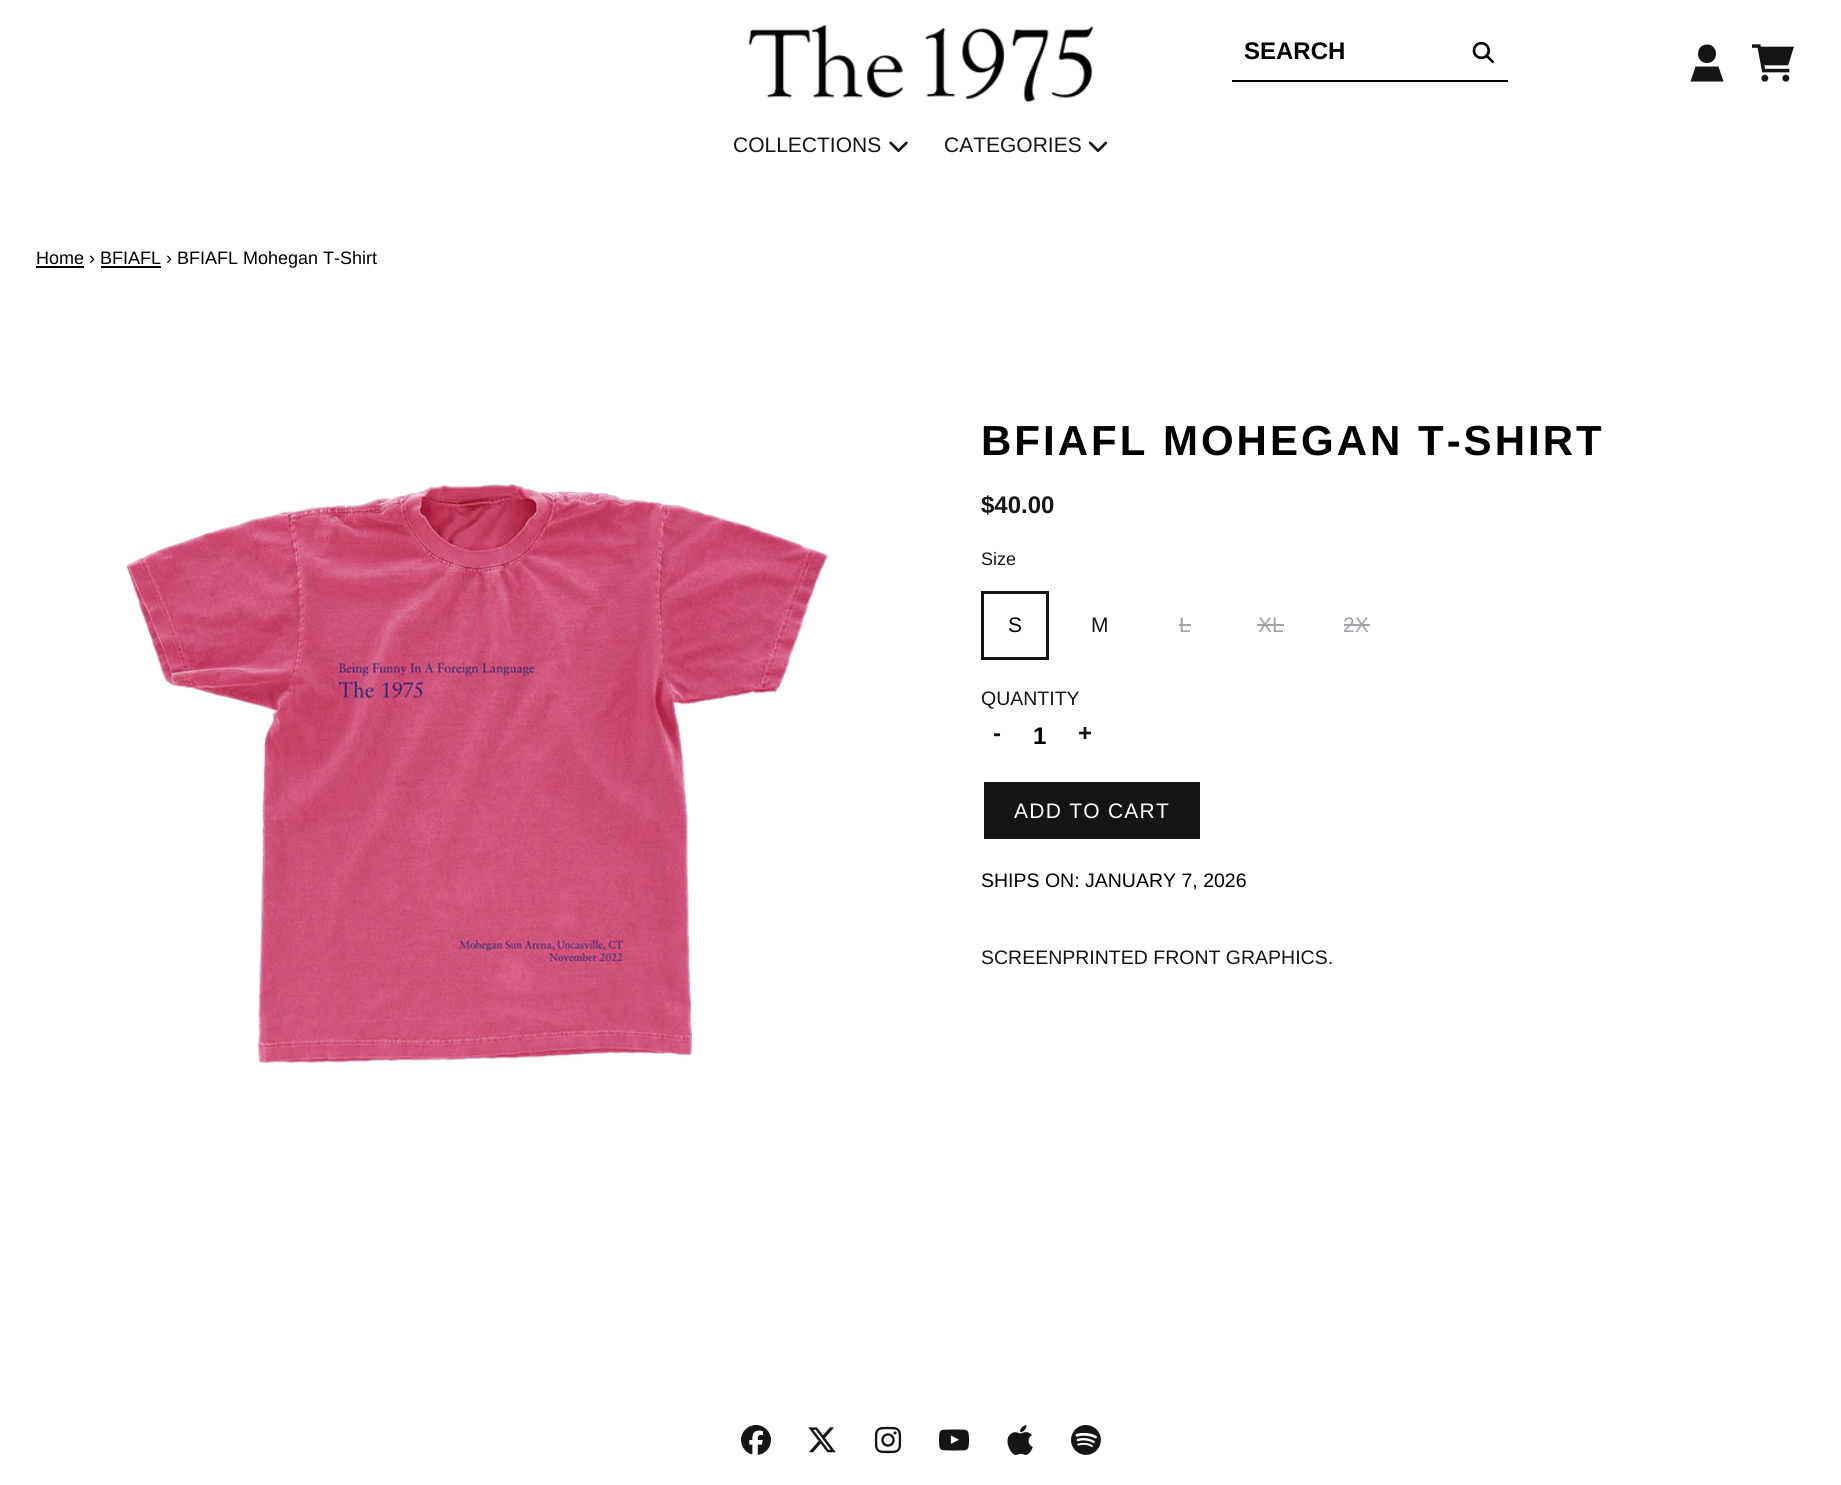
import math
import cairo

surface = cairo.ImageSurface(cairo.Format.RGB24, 1841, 1485)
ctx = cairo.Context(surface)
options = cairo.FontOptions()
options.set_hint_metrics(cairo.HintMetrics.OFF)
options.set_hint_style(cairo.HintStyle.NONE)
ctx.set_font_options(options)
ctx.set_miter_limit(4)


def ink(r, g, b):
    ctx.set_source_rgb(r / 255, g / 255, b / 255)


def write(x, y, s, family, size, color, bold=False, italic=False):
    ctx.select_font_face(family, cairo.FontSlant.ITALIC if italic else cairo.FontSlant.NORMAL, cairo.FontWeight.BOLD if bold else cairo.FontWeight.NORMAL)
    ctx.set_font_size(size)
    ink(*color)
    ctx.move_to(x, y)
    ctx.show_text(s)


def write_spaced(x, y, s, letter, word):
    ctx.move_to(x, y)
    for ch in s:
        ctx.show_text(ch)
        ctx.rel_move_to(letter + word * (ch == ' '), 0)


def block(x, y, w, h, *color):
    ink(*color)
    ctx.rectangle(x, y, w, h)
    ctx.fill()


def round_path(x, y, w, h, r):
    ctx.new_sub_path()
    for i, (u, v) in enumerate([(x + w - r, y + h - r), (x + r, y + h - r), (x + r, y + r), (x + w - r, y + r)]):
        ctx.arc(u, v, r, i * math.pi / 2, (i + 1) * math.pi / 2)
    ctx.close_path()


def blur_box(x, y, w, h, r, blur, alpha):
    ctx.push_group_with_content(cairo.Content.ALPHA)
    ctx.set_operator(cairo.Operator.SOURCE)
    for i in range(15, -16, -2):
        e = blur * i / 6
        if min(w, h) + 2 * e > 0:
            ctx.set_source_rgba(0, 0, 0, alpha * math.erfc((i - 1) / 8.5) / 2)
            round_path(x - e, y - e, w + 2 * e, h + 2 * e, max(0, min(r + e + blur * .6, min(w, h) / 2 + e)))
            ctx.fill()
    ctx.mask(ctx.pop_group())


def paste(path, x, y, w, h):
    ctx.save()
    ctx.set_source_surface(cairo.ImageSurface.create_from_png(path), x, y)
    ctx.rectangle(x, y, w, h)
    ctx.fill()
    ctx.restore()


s1 = dict(family="Liberation Sans", size=24, color=(0, 0, 0), bold=True)
s2 = dict(family="Liberation Sans", size=21, color=(20, 21, 21))
s3 = dict(family="Liberation Sans", size=18, color=(0, 0, 0))
s4 = dict(family="Liberation Sans", size=24, color=(20, 21, 21), bold=True)
s5 = dict(family="Liberation Sans", size=18, color=(20, 21, 21))
s6 = dict(family="Liberation Sans", size=21, color=(0, 0, 0))
s7 = dict(family="Liberation Sans", size=21, color=(161, 161, 170))
s8 = dict(family="Liberation Sans", size=19.5, color=(20, 21, 21))
s9 = dict(family="Liberation Sans", size=19.5, color=(0, 0, 0))

ink(255, 255, 255)
ctx.paint()
paste("pic1.png", 748, 25, 346, 77)
ctx.save()
ctx.rectangle(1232, 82, 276, 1)
ctx.clip()
ink(0, 0, 0)
blur_box(1232, 26, 276, 57, 0, 1.5, 0.05)
ctx.restore()
block(1232, 80, 276, 2, 0, 0, 0)
write(1244, 59, "SEARCH", **s1)
paste("pic2.png", 1472, 41, 22, 23)
ink(20, 21, 21)
ctx.new_path()
ctx.move_to(1707, 63)
ctx.curve_to(1719, 63, 1719, 44.5, 1707, 44.5)
ctx.curve_to(1695, 44.5, 1695, 63, 1707, 63)
ctx.close_path()
ctx.move_to(1723.5, 81.5)
ctx.line_to(1718.5, 66.5)
ctx.line_to(1695.5, 66.5)
ctx.line_to(1690.5, 81.5)
ctx.close_path()
ctx.fill()
paste("pic3.png", 1752, 44, 42, 38)
write(733, 152, "COLLECTIONS", **s2)
paste("pic4.png", 889, 141, 19, 11)
write(944, 152, "CATEGORIES", **s2)
paste("pic5.png", 1088, 141, 20, 11)
block(36, 266, 48, 2, 0, 0, 0)
write(36, 264, "Home › BFIAFL › BFIAFL Mohegan T-Shirt", **s3)
block(101, 266, 60, 2, 0, 0, 0)
paste("pic6.png", 126, 484, 702, 580)
ctx.select_font_face("Liberation Sans", cairo.FontSlant.NORMAL, cairo.FontWeight.BOLD)
ctx.set_font_size(42)
write_spaced(981, 455, "BFIAFL MOHEGAN T-SHIRT", 3, 0)
write(981, 513, "$40.00", **s4)
write(981, 565, "Size", **s5)
ctx.rectangle(982.5, 592.5, 65, 66)
ctx.set_line_width(3)
ctx.stroke()
write(1008, 632, "S", **s6)
write(1091, 632, "M", **s2)
write(1179, 632, "L", **s7)
block(1179, 624, 12, 2, 161, 161, 170)
write(1258, 632, "XL", **s7)
block(1257, 624, 27, 2, 161, 161, 170)
write(1343, 632, "2X", **s7)
block(1344, 624, 26, 2, 161, 161, 170)
write(981, 705, "QUANTITY", **s8)
write(993, 741, "-", **s4)
write(1033, 744, "1", **s1)
write(1078, 741, "+", **s4)
block(984, 782, 216, 57, 20, 21, 21)
ctx.select_font_face("Liberation Sans")
ctx.set_font_size(21)
ink(255, 255, 255)
write_spaced(1014, 818, "ADD TO CART", 1.25, 0)
write(981, 887, "SHIPS ON: JANUARY 7, 2026", **s9)
write(981, 964, "SCREENPRINTED FRONT GRAPHICS.", **s8)
paste("pic7.png", 741, 1425, 30, 30)
paste("pic8.png", 808, 1427, 28, 26)
paste("pic9.png", 874, 1426, 28, 28)
paste("pic10.png", 939, 1429, 30, 22)
paste("pic11.png", 1007, 1425, 26, 30)
paste("pic12.png", 1071, 1425, 30, 30)
surface.write_to_png("screenshot.png")
